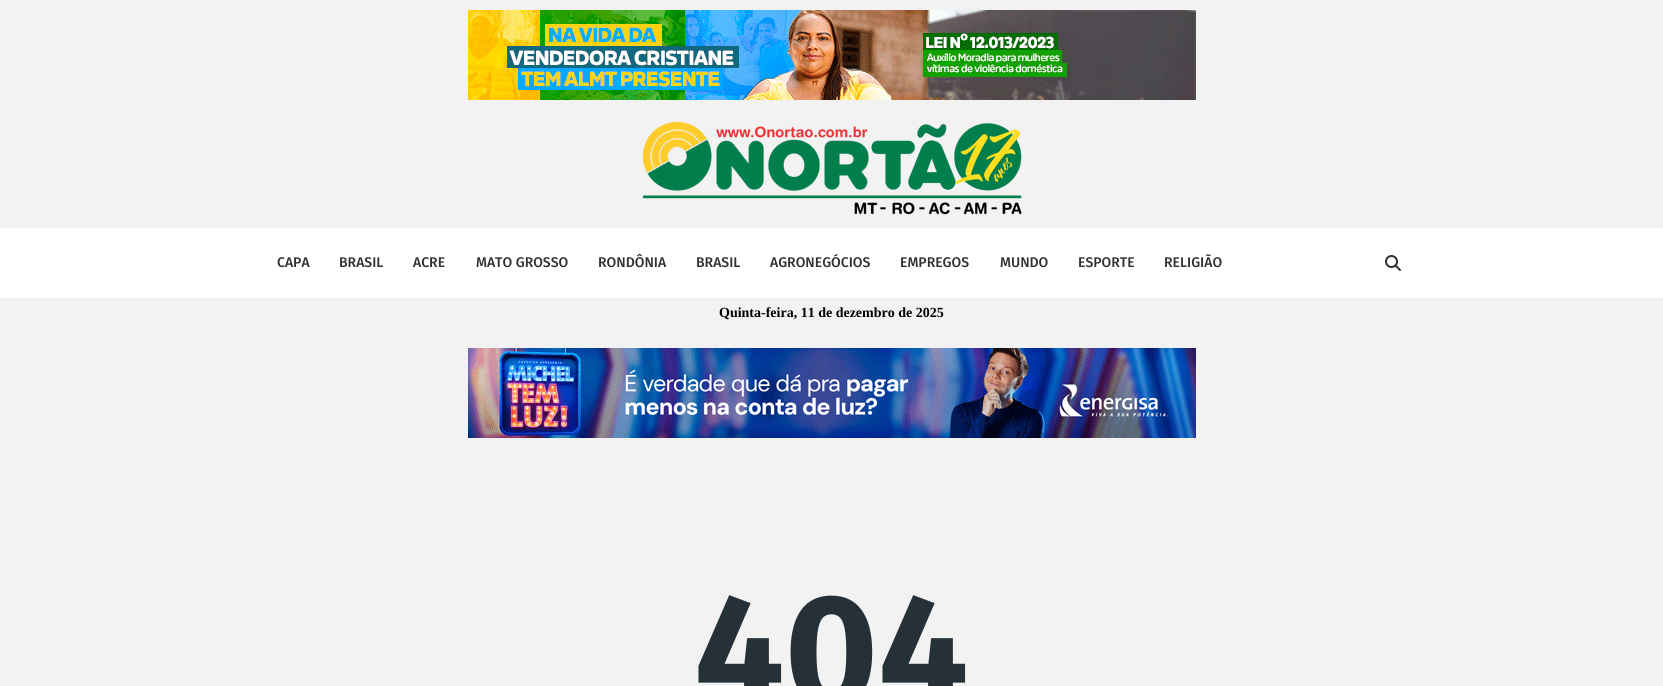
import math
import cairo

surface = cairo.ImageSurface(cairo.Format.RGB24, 1663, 686)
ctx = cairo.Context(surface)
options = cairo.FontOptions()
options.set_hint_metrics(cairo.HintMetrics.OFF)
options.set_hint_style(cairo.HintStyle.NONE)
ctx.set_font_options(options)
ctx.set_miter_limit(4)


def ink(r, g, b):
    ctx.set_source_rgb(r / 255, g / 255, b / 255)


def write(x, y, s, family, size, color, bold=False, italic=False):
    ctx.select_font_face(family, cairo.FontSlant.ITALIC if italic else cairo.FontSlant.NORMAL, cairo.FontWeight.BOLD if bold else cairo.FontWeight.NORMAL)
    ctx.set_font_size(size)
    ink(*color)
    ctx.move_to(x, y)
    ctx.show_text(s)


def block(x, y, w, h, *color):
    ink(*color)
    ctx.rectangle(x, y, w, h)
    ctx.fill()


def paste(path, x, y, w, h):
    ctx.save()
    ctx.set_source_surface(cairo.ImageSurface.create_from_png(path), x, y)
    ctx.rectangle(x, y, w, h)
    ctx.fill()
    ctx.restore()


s1 = dict(family="Fira Sans Medium", size=14, color=(49, 49, 49))
s2 = dict(family="Liberation Serif", size=14, color=(0, 0, 0), bold=True)
s3 = dict(family="Fira Sans", size=160, color=(37, 49, 55), bold=True)

ink(242, 242, 242)
ctx.paint()
paste("pic1.png", 468, 10, 728, 90)
paste("pic2.png", 642, 121, 380, 94)
block(0, 228, 1663, 70, 255, 255, 255)
block(0, 298, 1663, 1, 236, 236, 236)
write(277, 267, "CAPA", **s1)
write(339, 267, "BRASIL", **s1)
write(413, 267, "ACRE", **s1)
write(476, 267, "MATO GROSSO", **s1)
write(598, 267, "RONDÔNIA", **s1)
write(696, 267, "BRASIL", **s1)
write(770, 267, "AGRONEGÓCIOS", **s1)
write(900, 267, "EMPREGOS", **s1)
write(1000, 267, "MUNDO", **s1)
write(1078, 267, "ESPORTE", **s1)
write(1164, 267, "RELIGIÃO", **s1)
paste("pic3.png", 1385, 255, 16, 16)
write(719, 317, "Quinta-feira, 11 de dezembro de 2025", **s2)
paste("pic4.png", 468, 348, 728, 90)
write(694, 706, "404", **s3)
surface.write_to_png("screenshot.png")
